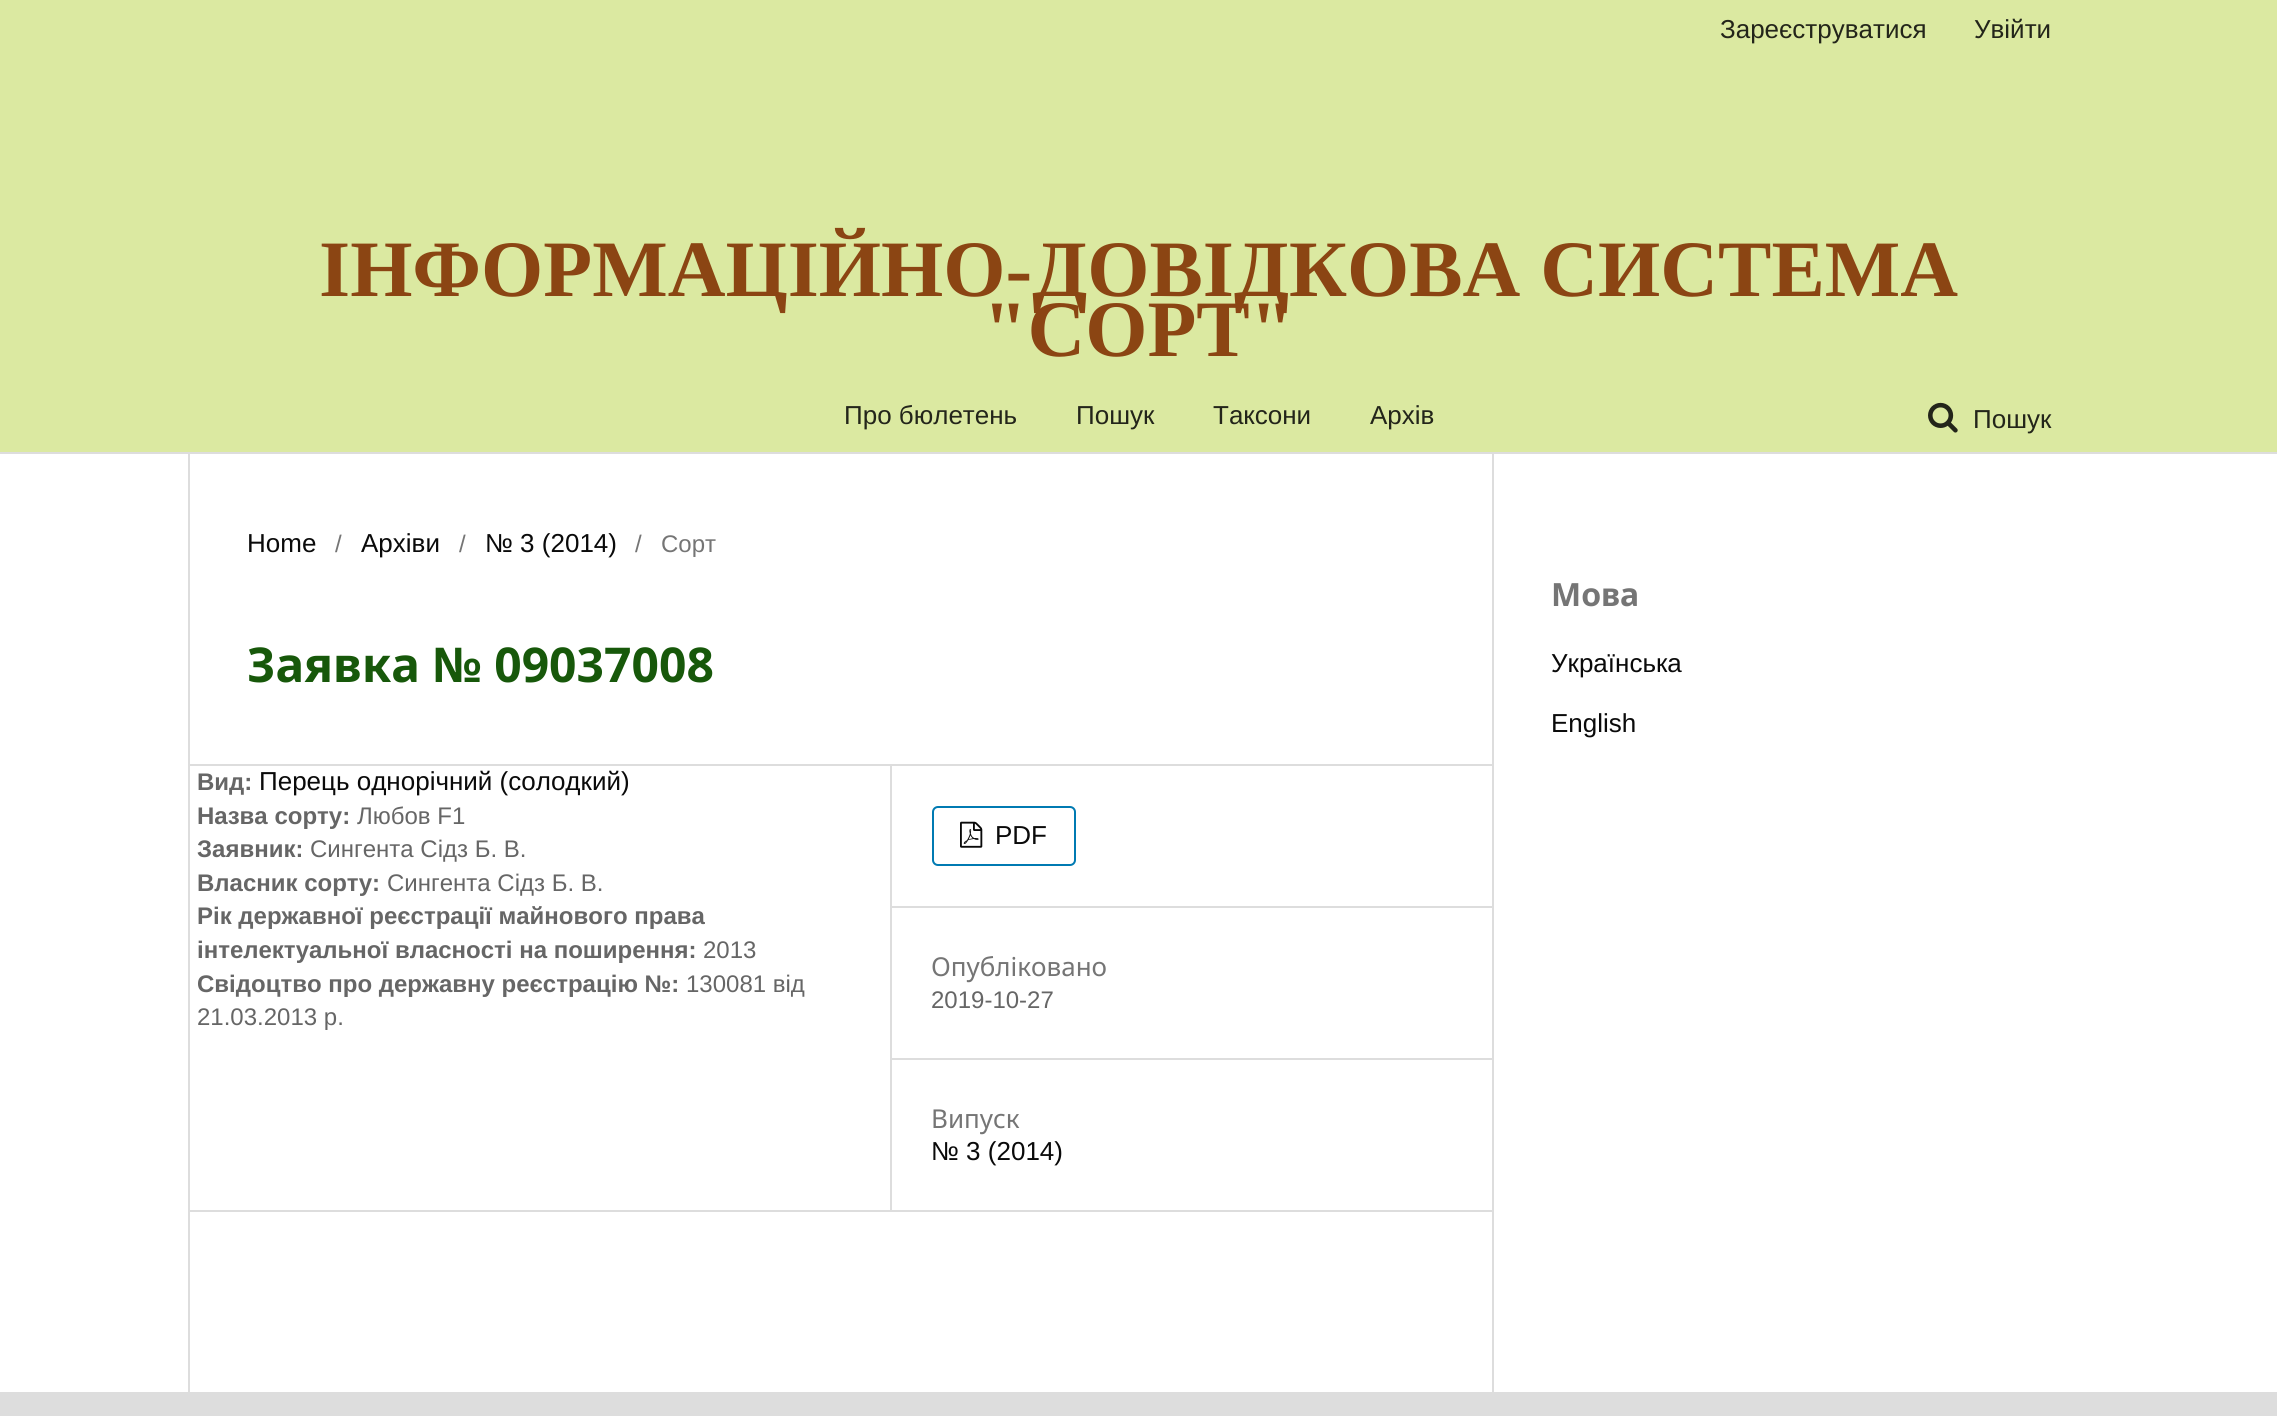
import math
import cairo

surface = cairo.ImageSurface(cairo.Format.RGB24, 2277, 1416)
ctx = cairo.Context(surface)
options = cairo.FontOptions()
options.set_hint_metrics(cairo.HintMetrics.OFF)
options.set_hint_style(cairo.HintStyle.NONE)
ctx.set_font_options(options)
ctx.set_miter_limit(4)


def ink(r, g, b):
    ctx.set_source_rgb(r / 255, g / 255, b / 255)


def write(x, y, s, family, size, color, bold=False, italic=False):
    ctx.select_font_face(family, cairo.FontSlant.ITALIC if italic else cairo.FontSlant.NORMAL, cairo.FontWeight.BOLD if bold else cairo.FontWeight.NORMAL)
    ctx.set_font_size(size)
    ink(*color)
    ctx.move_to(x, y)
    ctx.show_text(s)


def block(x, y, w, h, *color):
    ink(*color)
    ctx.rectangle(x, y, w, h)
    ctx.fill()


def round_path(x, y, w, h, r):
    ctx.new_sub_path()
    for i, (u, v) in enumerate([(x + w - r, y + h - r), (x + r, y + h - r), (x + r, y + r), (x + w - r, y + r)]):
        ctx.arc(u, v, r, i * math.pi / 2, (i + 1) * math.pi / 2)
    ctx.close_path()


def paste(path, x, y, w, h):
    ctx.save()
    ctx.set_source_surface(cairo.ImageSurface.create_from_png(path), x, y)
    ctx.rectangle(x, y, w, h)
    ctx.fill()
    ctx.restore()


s1 = dict(family="Liberation Sans", size=26, color=(35, 37, 26))
s2 = dict(family="Liberation Serif", size=80, color=(139, 69, 19), bold=True)
s3 = dict(family="Liberation Sans", size=26, color=(10, 10, 10))
s4 = dict(family="Liberation Sans", size=24, color=(117, 117, 117))
s5 = dict(family="Noto Sans", size=48, color=(23, 88, 10), bold=True)
s6 = dict(family="Liberation Sans", size=24, color=(102, 102, 102), bold=True)
s7 = dict(family="Liberation Sans", size=24, color=(102, 102, 102))
s8 = dict(family="Noto Sans", size=26, color=(117, 117, 117))
s9 = dict(family="Noto Sans", size=32, color=(117, 117, 117), bold=True)

ink(255, 255, 255)
ctx.paint()
block(0, 0, 2277, 452, 219, 233, 161)
block(0, 452, 2277, 2, 221, 221, 221)
write(1720, 38, "Зареєструватися", **s1)
write(1974, 38, "Увійти", **s1)
write(319, 296, "ІНФОРМАЦІЙНО-ДОВІДКОВА СИСТЕМА", **s2)
write(983, 356, "\"СОРТ\"", **s2)
write(844, 424, "Про бюлетень", **s1)
write(1076, 424, "Пошук", **s1)
write(1213, 424, "Таксони", **s1)
write(1370, 424, "Архів", **s1)
paste("pic1.png", 1928, 402, 30, 31)
write(1973, 428, "Пошук", **s1)
block(188, 764, 1304, 2, 221, 221, 221)
block(188, 1210, 1304, 2, 221, 221, 221)
block(188, 454, 2, 938, 221, 221, 221)
write(247, 552, "Home", **s3)
write(335, 552, "/", **s4)
write(361, 552, "Архіви", **s3)
write(459, 552, "/", **s4)
write(485, 552, "№ 3 (2014)", **s3)
write(635, 552, "/", **s4)
write(661, 552, "Сорт", **s4)
write(247, 682, "Заявка № 09037008", **s5)
write(197, 790, "Вид:", **s6)
write(259, 790, "Перець однорічний (солодкий)", **s3)
write(197, 824, "Назва сорту:", **s6)
write(357, 824, "Любов F1", **s7)
write(197, 857, "Заявник:", **s6)
write(310, 857, "Сингента Сідз Б. В.", **s7)
write(197, 891, "Власник сорту:", **s6)
write(387, 891, "Сингента Сідз Б. В.", **s7)
write(197, 924, "Рік державної реєстрації майнового права", **s6)
write(197, 958, "інтелектуальної власності на поширення:", **s6)
write(703, 958, "2013", **s7)
write(197, 992, "Свідоцтво про державну реєстрацію №:", **s6)
write(686, 992, "130081 від", **s7)
write(197, 1025, "21.03.2013 р.", **s7)
block(890, 766, 2, 444, 221, 221, 221)
block(892, 906, 600, 2, 221, 221, 221)
round_path(933, 807, 142, 58, 5)
ink(0, 122, 178)
ctx.stroke()
paste("pic2.png", 960, 821, 23, 27)
write(995, 844, "PDF", **s3)
block(892, 1058, 600, 2, 221, 221, 221)
write(931, 976, "Опубліковано", **s8)
write(931, 1008, "2019-10-27", **s7)
write(931, 1128, "Випуск", **s8)
write(931, 1160, "№ 3 (2014)", **s3)
block(1492, 454, 2, 938, 221, 221, 221)
write(1551, 606, "Мова", **s9)
write(1551, 672, "Українська", **s3)
write(1551, 732, "English", **s3)
block(0, 1392, 2277, 24, 221, 221, 221)
surface.write_to_png("screenshot.png")
